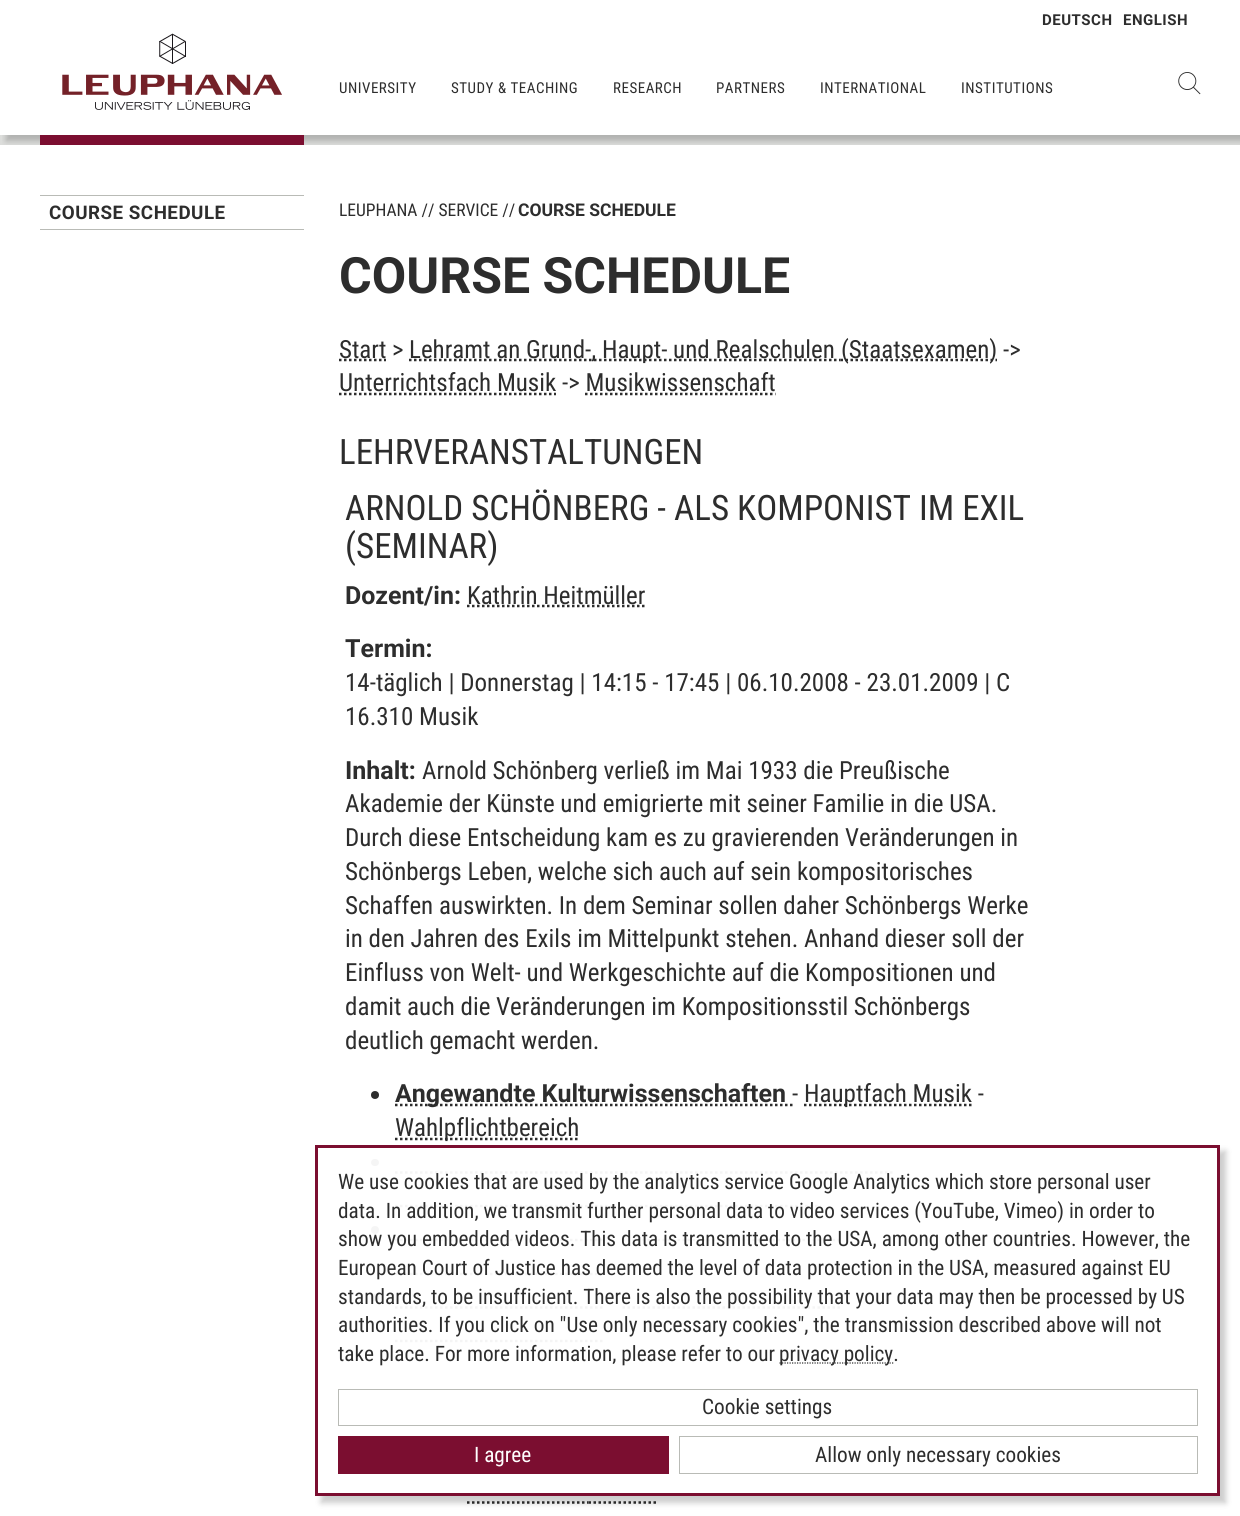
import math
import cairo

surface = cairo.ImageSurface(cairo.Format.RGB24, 1240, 1516)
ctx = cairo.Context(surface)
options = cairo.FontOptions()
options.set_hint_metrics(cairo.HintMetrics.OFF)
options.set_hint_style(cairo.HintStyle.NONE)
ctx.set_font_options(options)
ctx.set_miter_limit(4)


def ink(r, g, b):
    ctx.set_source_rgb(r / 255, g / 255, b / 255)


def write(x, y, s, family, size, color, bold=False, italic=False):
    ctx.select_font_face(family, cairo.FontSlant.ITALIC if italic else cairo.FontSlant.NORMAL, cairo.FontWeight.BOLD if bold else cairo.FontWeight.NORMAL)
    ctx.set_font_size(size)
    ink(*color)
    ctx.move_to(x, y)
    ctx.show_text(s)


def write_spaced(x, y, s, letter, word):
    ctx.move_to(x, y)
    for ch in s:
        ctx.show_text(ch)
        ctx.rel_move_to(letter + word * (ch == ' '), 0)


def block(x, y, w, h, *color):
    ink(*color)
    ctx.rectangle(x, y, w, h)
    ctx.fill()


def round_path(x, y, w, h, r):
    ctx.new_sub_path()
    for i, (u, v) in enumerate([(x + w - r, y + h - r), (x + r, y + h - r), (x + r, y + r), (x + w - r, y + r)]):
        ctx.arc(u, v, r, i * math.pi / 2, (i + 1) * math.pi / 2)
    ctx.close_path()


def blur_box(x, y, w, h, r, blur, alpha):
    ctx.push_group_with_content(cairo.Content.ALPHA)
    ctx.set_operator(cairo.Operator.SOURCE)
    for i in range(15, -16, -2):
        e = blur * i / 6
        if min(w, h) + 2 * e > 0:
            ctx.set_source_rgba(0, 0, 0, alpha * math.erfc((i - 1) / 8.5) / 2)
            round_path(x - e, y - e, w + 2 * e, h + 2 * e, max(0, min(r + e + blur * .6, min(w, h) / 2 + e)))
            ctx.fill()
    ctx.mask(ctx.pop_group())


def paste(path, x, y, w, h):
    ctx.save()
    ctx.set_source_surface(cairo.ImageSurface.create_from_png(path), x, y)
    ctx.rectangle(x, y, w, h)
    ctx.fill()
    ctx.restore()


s1 = dict(family="Roboto Condensed", size=17.5, color=(45, 45, 45))
s2 = dict(family="Roboto", size=17.5, color=(45, 45, 45), bold=True)
s3 = dict(family="Roboto", size=50, color=(45, 45, 45), bold=True)
s4 = dict(family="Roboto Condensed", size=25, color=(45, 45, 45))
s5 = dict(family="Roboto Condensed", size=35, color=(45, 45, 45))
s6 = dict(family="Roboto", size=25, color=(45, 45, 45), bold=True)
s7 = dict(family="Roboto Condensed", size=21.25, color=(45, 45, 45))
s8 = dict(family="Roboto Condensed", size=21.25, color=(255, 255, 255))

ink(220, 221, 219)
ctx.paint()
block(0, 0, 1240, 135, 255, 255, 255)
block(0, 145, 1240, 1371, 255, 255, 255)
ctx.save()
ctx.rectangle(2, 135, 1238, 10)
ctx.clip()
ink(0, 0, 0)
blur_box(6, 6, 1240, 135, 0, 3, 0.2)
ctx.restore()
ctx.select_font_face("Roboto", cairo.FontSlant.NORMAL, cairo.FontWeight.BOLD)
ctx.set_font_size(15)
ink(45, 45, 45)
write_spaced(1042, 25, "DEUTSCH", 0.5, 0)
write_spaced(1123, 25, "ENGLISH", 0.5, 0)
paste("pic1.png", 62, 33, 220, 77)
block(40, 135, 264, 10, 123, 14, 48)
ctx.select_font_face("Roboto Condensed")
ink(45, 45, 45)
write_spaced(339, 93, "UNIVERSITY", 0.5, 0)
write_spaced(451, 93, "STUDY & TEACHING", 0.5, 0)
write_spaced(613, 93, "RESEARCH", 0.5, 0)
write_spaced(716, 93, "PARTNERS", 0.5, 0)
write_spaced(820, 93, "INTERNATIONAL", 0.5, 0)
write_spaced(961, 93, "INSTITUTIONS", 0.5, 0)
paste("pic2.png", 1178, 72, 23, 23)
block(40, 195, 264, 1, 185, 187, 182)
block(40, 229, 264, 1, 185, 187, 182)
ctx.select_font_face("Roboto", cairo.FontSlant.NORMAL, cairo.FontWeight.BOLD)
ctx.set_font_size(18.75)
ink(45, 45, 45)
write_spaced(49, 219, "COURSE SCHEDULE", 0.5, 0)
write(339, 216, "LEUPHANA // SERVICE //", **s1)
write(518, 216, "COURSE SCHEDULE", **s2)
write(339, 293, "COURSE SCHEDULE", **s3)
ctx.new_path()
ctx.move_to(339, 360)
ctx.line_to(386, 360)
ctx.set_line_width(2.5)
ctx.set_dash([2.5, 2.5])
ctx.stroke()
write(339, 358, "Start >", **s4)
ctx.new_path()
ctx.move_to(409, 360)
ctx.line_to(840.5, 360)
ctx.stroke()
write(409, 358, "Lehramt an Grund-, Haupt- und Realschulen", **s4)
ctx.new_path()
ctx.move_to(840.5, 360)
ctx.line_to(997, 360)
ctx.stroke()
write(841, 358, "(Staatsexamen) ->", **s4)
write(339, 391, "Unterrichtsfach Musik -> Musikwissenschaft", **s4)
ctx.new_path()
ctx.move_to(339, 394)
ctx.line_to(556, 394)
ctx.stroke()
ctx.new_path()
ctx.move_to(585, 394)
ctx.line_to(775.5, 394)
ctx.stroke()
write(339, 464, "LEHRVERANSTALTUNGEN", **s5)
write(345, 520, "ARNOLD SCHÖNBERG - ALS KOMPONIST IM EXIL", **s5)
write(345, 558, "(SEMINAR)", **s5)
write(345, 604, "Dozent/in:", **s6)
ctx.new_path()
ctx.move_to(467, 606)
ctx.line_to(645, 606)
ctx.stroke()
write(467, 604, "Kathrin Heitmüller", **s4)
write(345, 657, "Termin:", **s6)
write(345, 691, "14-täglich | Donnerstag | 14:15 - 17:45 | 06.10.2008 - 23.01.2009 | C", **s4)
write(345, 725, "16.310 Musik", **s4)
write(345, 779, "Inhalt:", **s6)
write(422, 779, "Arnold Schönberg verließ im Mai 1933 die Preußische", **s4)
write(345, 812, "Akademie der Künste und emigrierte mit seiner Familie in die USA.", **s4)
write(345, 846, "Durch diese Entscheidung kam es zu gravierenden Veränderungen in", **s4)
write(345, 880, "Schönbergs Leben, welche sich auch auf sein kompositorisches", **s4)
write(345, 914, "Schaffen auswirkten. In dem Seminar sollen daher Schönbergs Werke", **s4)
write(345, 947, "in den Jahren des Exils im Mittelpunkt stehen. Anhand dieser soll der", **s4)
write(345, 981, "Einfluss von Welt- und Werkgeschichte auf die Kompositionen und", **s4)
write(345, 1015, "damit auch die Veränderungen im Kompositionsstil Schönbergs", **s4)
write(345, 1049, "deutlich gemacht werden.", **s4)
ctx.new_path()
ctx.arc(375, 1095, 4, 0, 2 * math.pi)
ctx.fill()
ctx.new_path()
ctx.move_to(395, 1105)
ctx.line_to(792.5, 1105)
ctx.stroke()
write(395, 1102, "Angewandte Kulturwissenschaften", **s6)
write(792, 1102, "-", **s4)
ctx.new_path()
ctx.move_to(804, 1105)
ctx.line_to(972, 1105)
ctx.stroke()
write(804, 1102, "Hauptfach Musik -", **s4)
ctx.new_path()
ctx.move_to(395, 1139)
ctx.line_to(579.5, 1139)
ctx.stroke()
write(395, 1136, "Wahlpflichtbereich", **s4)
round_path(371, 1159, 8, 7, 3.5)
ctx.fill()
ctx.new_path()
ctx.move_to(395, 1172.5)
ctx.line_to(894.5, 1172.5)
ctx.stroke()
ctx.new_path()
ctx.move_to(395, 1206)
ctx.line_to(612.5, 1206)
ctx.stroke()
ctx.new_path()
ctx.move_to(630, 1206)
ctx.line_to(820.5, 1206)
ctx.stroke()
ctx.arc(375, 1230, 4, 0, 2 * math.pi)
ctx.fill()
ctx.new_path()
ctx.move_to(395, 1240)
ctx.line_to(605, 1240)
ctx.stroke()
ctx.new_path()
ctx.move_to(622.5, 1240)
ctx.line_to(840, 1240)
ctx.stroke()
ctx.new_path()
ctx.move_to(395, 1274)
ctx.line_to(597.5, 1274)
ctx.stroke()
round_path(371, 1294, 8, 7, 3.5)
ctx.fill()
ctx.new_path()
ctx.move_to(395, 1307.5)
ctx.line_to(605, 1307.5)
ctx.stroke()
ctx.new_path()
ctx.move_to(622.5, 1307.5)
ctx.line_to(840, 1307.5)
ctx.stroke()
ctx.new_path()
ctx.move_to(395, 1341)
ctx.line_to(603.5, 1341)
ctx.stroke()
ctx.new_path()
ctx.move_to(467, 1502.5)
ctx.line_to(588.5, 1502.5)
ctx.stroke()
ctx.new_path()
ctx.move_to(588.5, 1502.5)
ctx.line_to(657, 1502.5)
ctx.stroke()
ctx.save()
ctx.set_fill_rule(cairo.FillRule.EVEN_ODD)
ctx.new_path()
ctx.move_to(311, 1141)
ctx.line_to(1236, 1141)
ctx.line_to(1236, 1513)
ctx.line_to(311, 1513)
ctx.close_path()
ctx.move_to(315, 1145)
ctx.line_to(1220, 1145)
ctx.line_to(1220, 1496)
ctx.line_to(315, 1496)
ctx.close_path()
ctx.clip()
ink(0, 0, 0)
blur_box(321, 1151, 905, 352, 0, 3, 0.2)
ctx.restore()
ctx.set_source_rgba(1, 1, 1, 0.95)
ctx.rectangle(371, 1159, 522, 184)
ctx.fill()
ctx.rectangle(316.5, 1146.5, 902, 348)
ink(123, 14, 48)
ctx.set_line_width(3)
ctx.set_dash([])
ctx.stroke()
write(338, 1189, "We use cookies that are used by the analytics service Google Analytics which store personal user", **s7)
write(338, 1218, "data. In addition, we transmit further personal data to video services (YouTube, Vimeo) in order to", **s7)
write(338, 1246, "show you embedded videos. This data is transmitted to the USA, among other countries. However, the", **s7)
write(338, 1275, "European Court of Justice has deemed the level of data protection in the USA, measured against EU", **s7)
write(338, 1304, "standards, to be insufficient. There is also the possibility that your data may then be processed by US", **s7)
write(338, 1332, "authorities. If you click on \"Use only necessary cookies\", the transmission described above will not", **s7)
write(338, 1361, "take place. For more information, please refer to our", **s7)
ctx.new_path()
ctx.move_to(779.5, 1363)
ctx.line_to(893.5, 1363)
ctx.set_line_width(1.2)
ctx.set_dash([1.25, 1.25])
ctx.stroke()
write(779, 1361, "privacy policy.", **s7)
ctx.rectangle(338.5, 1389.5, 859, 36)
ink(185, 187, 182)
ctx.set_line_width(1)
ctx.set_dash([])
ctx.stroke()
write(702, 1414, "Cookie settings", **s7)
block(338, 1436, 331, 38, 123, 14, 48)
write(474, 1462, "I agree", **s8)
ctx.rectangle(679.5, 1436.5, 518, 37)
ink(185, 187, 182)
ctx.stroke()
write(815, 1462, "Allow only necessary cookies", **s7)
surface.write_to_png("screenshot.png")
